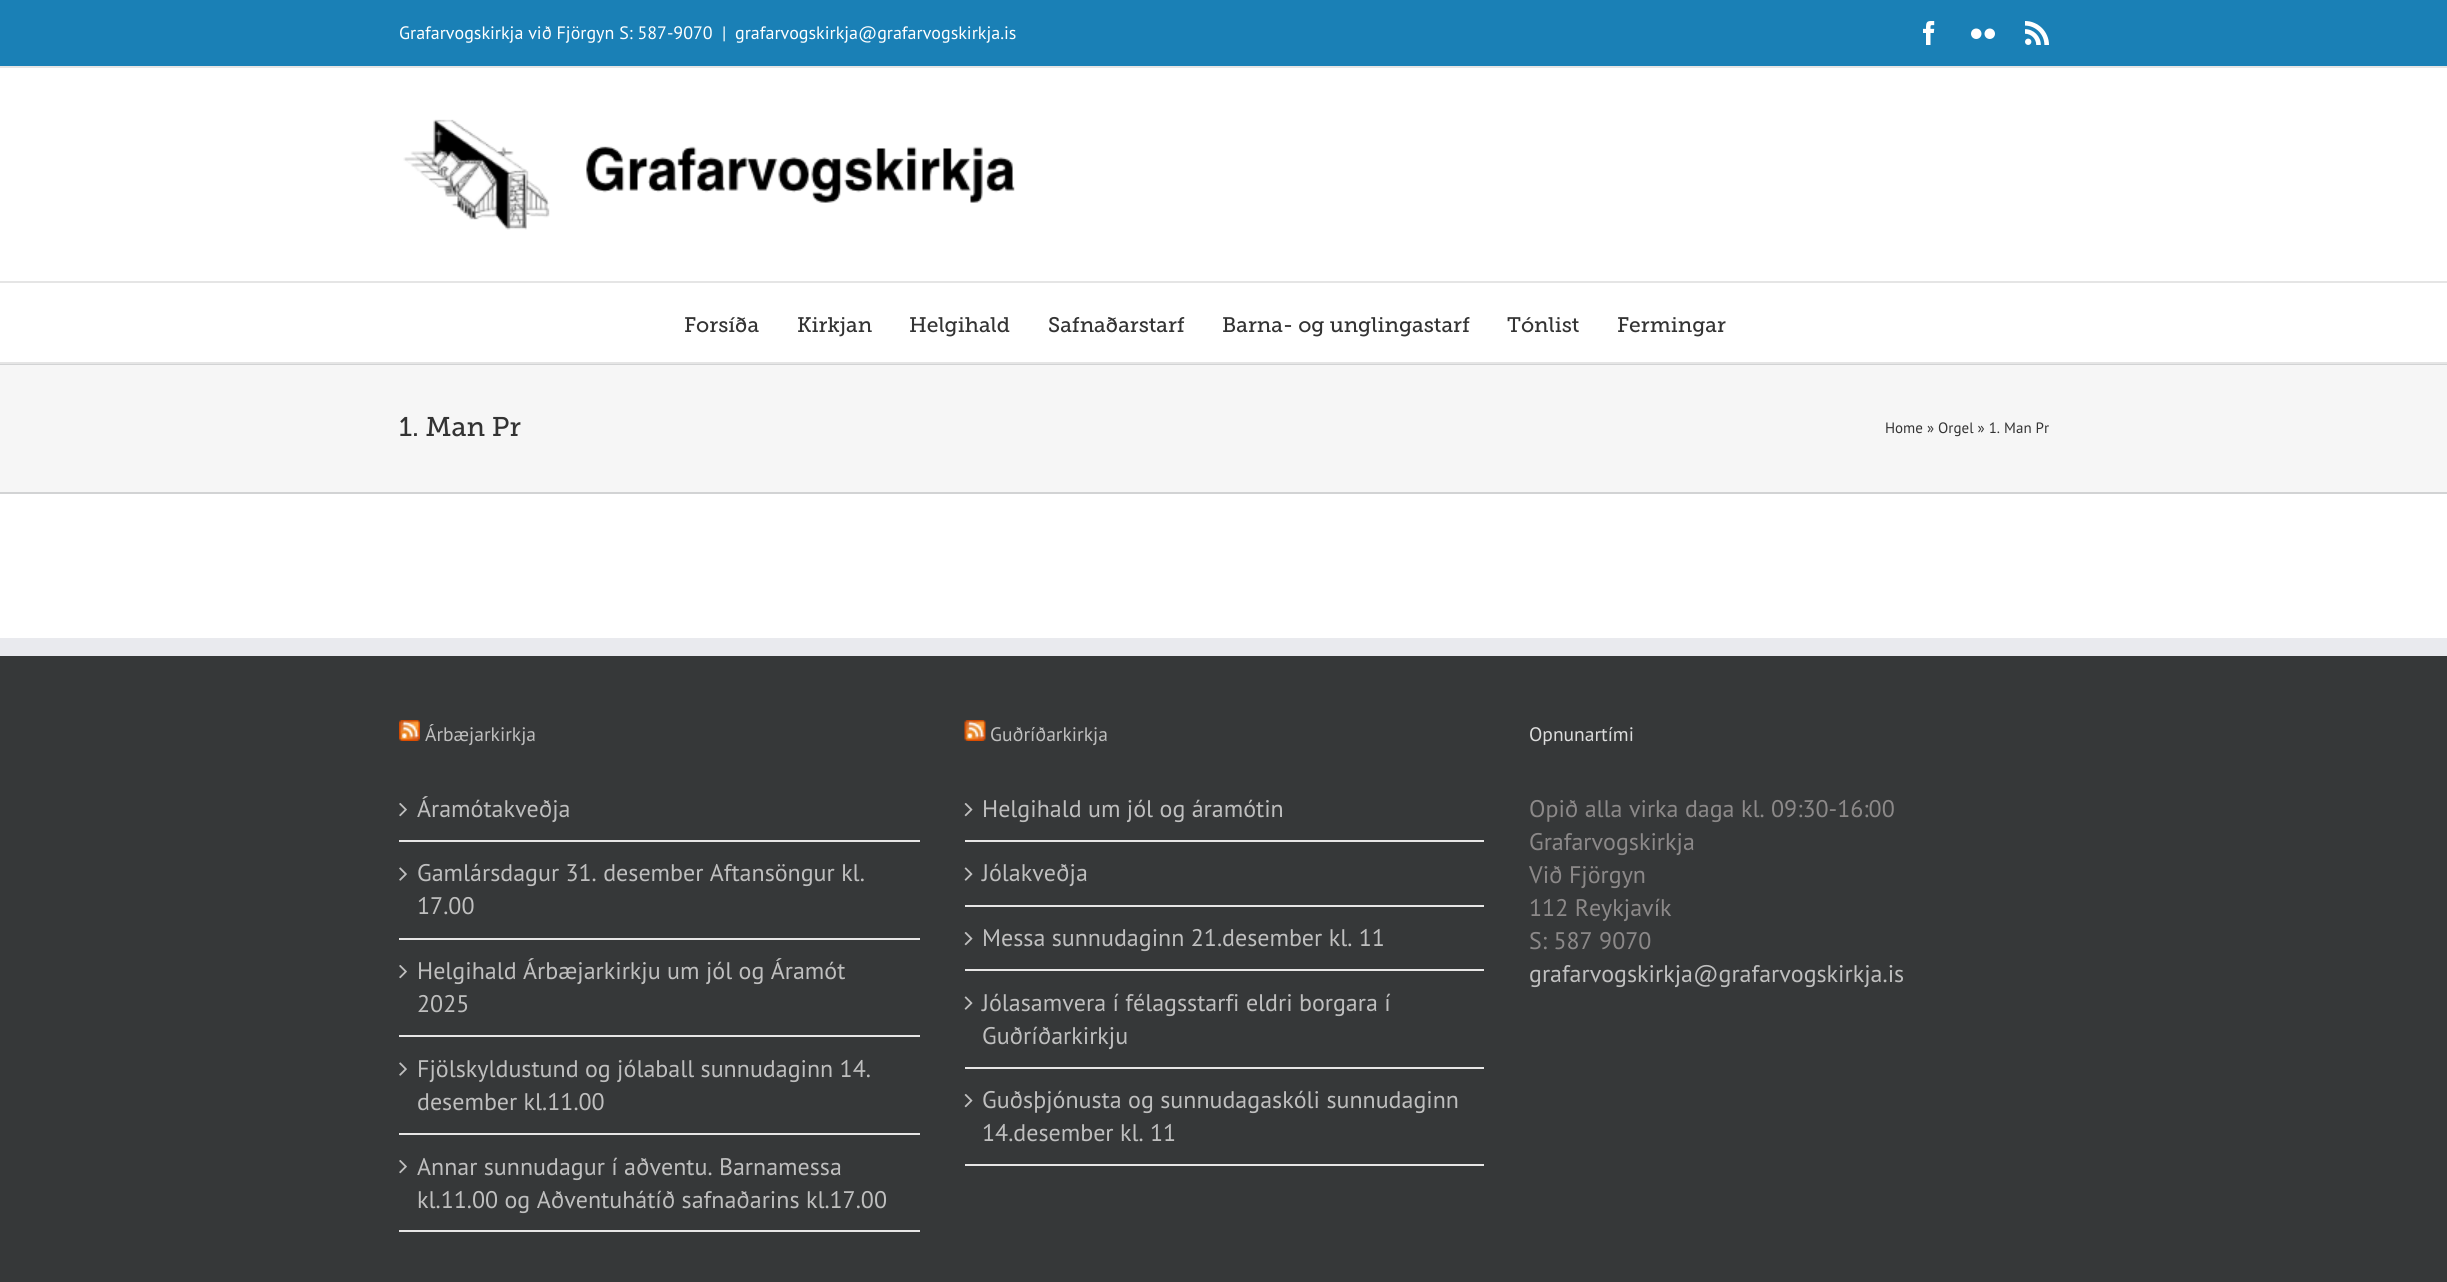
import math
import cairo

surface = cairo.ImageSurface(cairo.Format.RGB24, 2447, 1282)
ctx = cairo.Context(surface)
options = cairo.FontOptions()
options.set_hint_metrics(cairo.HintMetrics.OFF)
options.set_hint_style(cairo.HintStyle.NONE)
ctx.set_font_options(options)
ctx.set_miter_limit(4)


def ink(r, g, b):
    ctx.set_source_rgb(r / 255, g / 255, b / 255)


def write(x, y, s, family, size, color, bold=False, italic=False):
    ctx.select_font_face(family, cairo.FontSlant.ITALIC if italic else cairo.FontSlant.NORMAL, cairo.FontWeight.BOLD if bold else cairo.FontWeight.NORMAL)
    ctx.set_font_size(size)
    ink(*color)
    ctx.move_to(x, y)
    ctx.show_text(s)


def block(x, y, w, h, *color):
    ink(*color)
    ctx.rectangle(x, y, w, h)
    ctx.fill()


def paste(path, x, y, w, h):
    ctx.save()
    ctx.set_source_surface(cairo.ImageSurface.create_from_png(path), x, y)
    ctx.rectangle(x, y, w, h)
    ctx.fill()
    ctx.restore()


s1 = dict(family="PT Sans", size=18, color=(255, 255, 255))
s2 = dict(family="Museo Slab", size=21, color=(51, 51, 51))
s3 = dict(family="Museo Slab", size=27, color=(51, 51, 51))
s4 = dict(family="PT Sans", size=15, color=(51, 51, 51))
s5 = dict(family="PT Sans", size=19.5, color=(191, 191, 191))
s6 = dict(family="PT Sans", size=24, color=(191, 191, 191))
s7 = dict(family="PT Sans", size=19.5, color=(221, 221, 221))
s8 = dict(family="PT Sans", size=24, color=(140, 137, 137))

ink(255, 255, 255)
ctx.paint()
block(0, 0, 2447, 66, 26, 128, 182)
block(0, 66, 2447, 2, 229, 229, 229)
write(399, 39, "Grafarvogskirkja við Fjörgyn S: 587-9070", **s1)
write(722, 39, "|", **s1)
write(735, 39, "grafarvogskirkja@grafarvogskirkja.is", **s1)
paste("pic1.png", 1923, 21, 12, 24)
paste("pic2.png", 1971, 28, 24, 11)
paste("pic3.png", 2025, 21, 24, 24)
block(0, 281, 2447, 2, 229, 229, 229)
paste("pic4.png", 403, 119, 612, 111)
block(0, 362, 2447, 2, 229, 229, 229)
write(684, 332, "Forsíða", **s2)
write(797, 332, "Kirkjan", **s2)
write(909, 332, "Helgihald", **s2)
write(1048, 332, "Safnaðarstarf", **s2)
write(1222, 332, "Barna- og unglingastarf", **s2)
write(1507, 332, "Tónlist", **s2)
write(1617, 332, "Fermingar", **s2)
block(0, 365, 2447, 127, 246, 246, 246)
block(0, 364, 2447, 1, 210, 211, 212)
block(0, 492, 2447, 2, 210, 211, 212)
write(399, 436, "1. Man Pr", **s3)
write(1885, 433, "Home » Orgel » 1. Man Pr", **s4)
block(0, 656, 2447, 626, 54, 56, 57)
block(0, 638, 2447, 18, 233, 234, 238)
paste("pic5.png", 399, 720, 21, 21)
write(425, 741, "Árbæjarkirkja", **s5)
block(399, 840, 521, 2, 231, 230, 230)
paste("pic6.png", 399, 803, 8, 14)
write(417, 817, "Áramótakveðja", **s6)
block(399, 938, 521, 2, 231, 230, 230)
paste("pic7.png", 399, 867, 8, 14)
write(417, 881, "Gamlársdagur 31. desember Aftansöngur kl.", **s6)
write(417, 914, "17.00", **s6)
block(399, 1035, 521, 2, 231, 230, 230)
paste("pic6.png", 399, 965, 8, 14)
write(417, 979, "Helgihald Árbæjarkirkju um jól og Áramót", **s6)
write(417, 1012, "2025", **s6)
block(399, 1133, 521, 2, 231, 230, 230)
paste("pic7.png", 399, 1062, 8, 14)
write(417, 1077, "Fjölskyldustund og jólaball sunnudaginn 14.", **s6)
write(417, 1110, "desember kl.11.00", **s6)
block(399, 1230, 521, 2, 231, 230, 230)
paste("pic6.png", 399, 1160, 8, 14)
write(417, 1175, "Annar sunnudagur í aðventu. Barnamessa", **s6)
write(417, 1208, "kl.11.00 og Aðventuhátíð safnaðarins kl.17.00", **s6)
paste("pic8.png", 964, 720, 22, 21)
write(990, 741, "Guðríðarkirkja", **s5)
block(965, 840, 519, 2, 231, 230, 230)
paste("pic9.png", 964, 803, 9, 14)
write(982, 817, "Helgihald um jól og áramótin", **s6)
block(965, 905, 519, 2, 231, 230, 230)
paste("pic10.png", 964, 867, 9, 14)
write(982, 881, "Jólakveðja", **s6)
block(965, 969, 519, 2, 231, 230, 230)
paste("pic9.png", 964, 932, 9, 14)
write(982, 946, "Messa sunnudaginn 21.desember kl. 11", **s6)
block(965, 1067, 519, 2, 231, 230, 230)
paste("pic10.png", 964, 996, 9, 14)
write(982, 1011, "Jólasamvera í félagsstarfi eldri borgara í", **s6)
write(982, 1044, "Guðríðarkirkju", **s6)
block(965, 1164, 519, 2, 231, 230, 230)
paste("pic9.png", 964, 1094, 9, 14)
write(982, 1108, "Guðsþjónusta og sunnudagaskóli sunnudaginn", **s6)
write(982, 1141, "14.desember kl. 11", **s6)
write(1529, 741, "Opnunartími", **s7)
write(1529, 817, "Opið alla virka daga kl. 09:30-16:00", **s8)
write(1529, 850, "Grafarvogskirkja", **s8)
write(1529, 883, "Við Fjörgyn", **s8)
write(1529, 916, "112 Reykjavík", **s8)
write(1529, 949, "S: 587 9070", **s8)
write(1529, 982, "grafarvogskirkja@grafarvogskirkja.is", **s6)
surface.write_to_png("screenshot.png")
